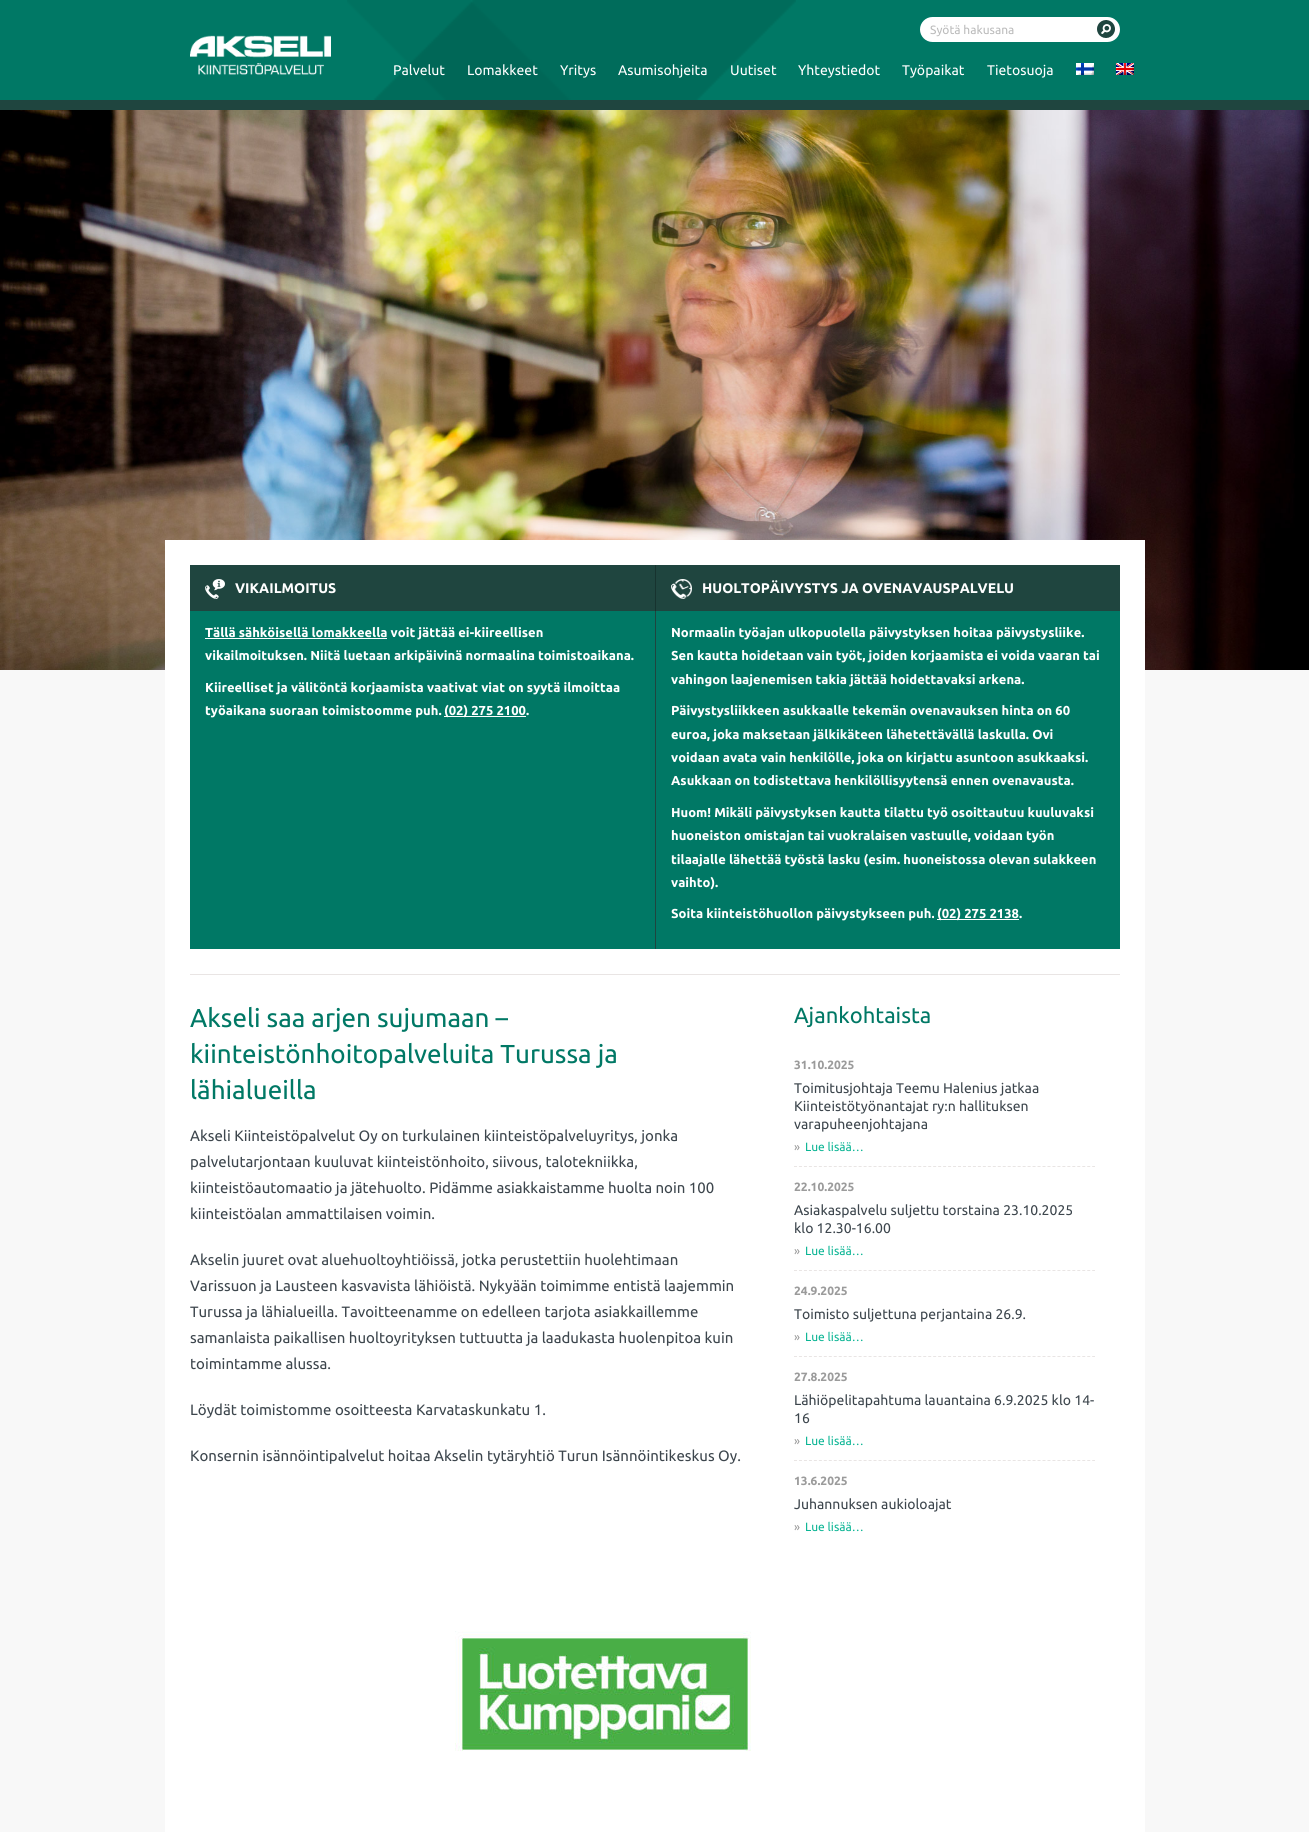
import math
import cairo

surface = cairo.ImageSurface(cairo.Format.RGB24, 1309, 1832)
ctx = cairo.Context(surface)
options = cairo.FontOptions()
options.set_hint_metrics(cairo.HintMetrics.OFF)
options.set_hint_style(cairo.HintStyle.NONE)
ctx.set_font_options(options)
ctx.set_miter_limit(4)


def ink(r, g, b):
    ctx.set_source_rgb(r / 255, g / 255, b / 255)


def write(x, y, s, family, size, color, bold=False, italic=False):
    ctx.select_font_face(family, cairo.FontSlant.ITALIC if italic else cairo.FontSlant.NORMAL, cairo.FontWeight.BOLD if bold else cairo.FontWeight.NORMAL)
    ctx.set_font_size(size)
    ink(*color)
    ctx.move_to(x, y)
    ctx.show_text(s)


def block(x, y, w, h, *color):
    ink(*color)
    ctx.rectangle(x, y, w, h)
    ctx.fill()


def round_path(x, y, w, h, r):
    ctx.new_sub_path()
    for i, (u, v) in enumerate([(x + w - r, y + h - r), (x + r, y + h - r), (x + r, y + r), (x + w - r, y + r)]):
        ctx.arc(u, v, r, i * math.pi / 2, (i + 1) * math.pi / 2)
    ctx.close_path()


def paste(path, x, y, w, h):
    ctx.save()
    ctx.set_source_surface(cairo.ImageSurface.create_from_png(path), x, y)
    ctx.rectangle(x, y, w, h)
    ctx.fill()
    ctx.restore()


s1 = dict(family="Ubuntu", size=12, color=(187, 187, 187))
s2 = dict(family="Ubuntu", size=14, color=(255, 255, 255))
s3 = dict(family="Ubuntu", size=14, color=(255, 255, 255), bold=True)
s4 = dict(family="Ubuntu", size=13, color=(255, 255, 255), bold=True)
s5 = dict(family="Ubuntu", size=26, color=(0, 120, 101))
s6 = dict(family="Ubuntu", size=15, color=(61, 70, 77))
s7 = dict(family="Ubuntu", size=22, color=(0, 120, 101))
s8 = dict(family="Ubuntu", size=12, color=(155, 155, 155), bold=True)
s9 = dict(family="Ubuntu", size=14, color=(61, 70, 77))
s10 = dict(family="Ubuntu", size=12, color=(155, 155, 155))
s11 = dict(family="Ubuntu", size=12, color=(11, 181, 148))

ink(248, 248, 248)
ctx.paint()
block(0, 0, 1309, 100, 0, 120, 101)
paste("pic1.png", 347, 0, 449, 100)
ink(255, 255, 255)
round_path(920, 17, 200, 25, 12.5)
ctx.fill()
write(930, 34, "Syötä hakusana", **s1)
paste("pic2.png", 1097, 20, 18, 18)
paste("pic3.png", 190, 35, 141, 40)
write(393, 75, "Palvelut", **s2)
write(467, 75, "Lomakkeet", **s2)
write(560, 75, "Yritys", **s2)
write(618, 75, "Asumisohjeita", **s2)
write(730, 75, "Uutiset", **s2)
write(798, 75, "Yhteystiedot", **s2)
write(902, 75, "Työpaikat", **s2)
write(987, 75, "Tietosuoja", **s2)
paste("pic4.png", 1076, 63, 18, 12)
paste("pic5.png", 1116, 63, 18, 12)
block(0, 100, 1309, 10, 31, 69, 63)
paste("pic6.png", 0, 110, 1309, 560)
block(165, 540, 980, 1292, 255, 255, 255)
block(190, 611, 930, 338, 0, 120, 101)
block(190, 565, 465, 46, 31, 69, 63)
paste("pic7.png", 205, 579, 20, 20)
write(235, 593, "VIKAILMOITUS", **s3)
block(205, 638, 182, 1, 255, 255, 255)
write(205, 637, "Tällä sähköisellä lomakkeella voit jättää ei-kiireellisen", **s4)
write(205, 660, "vikailmoituksen. Niitä luetaan arkipäivinä normaalina toimistoaikana.", **s4)
write(205, 692, "Kiireelliset ja välitöntä korjaamista vaativat viat on syytä ilmoittaa", **s4)
write(205, 715, "työaikana suoraan toimistoomme puh.", **s4)
block(444, 716, 82, 1, 255, 255, 255)
write(444, 715, "(02) 275 2100.", **s4)
block(656, 565, 464, 46, 31, 69, 63)
block(655, 565, 1, 46, 23, 51, 47)
paste("pic8.png", 671, 579, 21, 20)
write(702, 593, "HUOLTOPÄIVYSTYS JA OVENAVAUSPALVELU", **s3)
block(655, 611, 1, 338, 31, 69, 63)
write(671, 637, "Normaalin työajan ulkopuolella päivystyksen hoitaa päivystysliike.", **s4)
write(671, 660, "Sen kautta hoidetaan vain työt, joiden korjaamista ei voida vaaran tai", **s4)
write(671, 684, "vahingon laajenemisen takia jättää hoidettavaksi arkena.", **s4)
write(671, 715, "Päivystysliikkeen asukkaalle tekemän ovenavauksen hinta on 60", **s4)
write(671, 739, "euroa, joka maksetaan jälkikäteen lähetettävällä laskulla. Ovi", **s4)
write(671, 762, "voidaan avata vain henkilölle, joka on kirjattu asuntoon asukkaaksi.", **s4)
write(671, 785, "Asukkaan on todistettava henkilöllisyytensä ennen ovenavausta.", **s4)
write(671, 817, "Huom! Mikäli päivystyksen kautta tilattu työ osoittautuu kuuluvaksi", **s4)
write(671, 840, "huoneiston omistajan tai vuokralaisen vastuulle, voidaan työn", **s4)
write(671, 864, "tilaajalle lähettää työstä lasku (esim. huoneistossa olevan sulakkeen", **s4)
write(671, 887, "vaihto).", **s4)
write(671, 918, "Soita kiinteistöhuollon päivystykseen puh.", **s4)
block(937, 919, 82, 1, 255, 255, 255)
write(937, 918, "(02) 275 2138.", **s4)
block(190, 974, 930, 1, 233, 229, 228)
write(190, 1027, "Akseli saa arjen sujumaan –", **s5)
write(190, 1063, "kiinteistönhoitopalveluita Turussa ja", **s5)
write(190, 1099, "lähialueilla", **s5)
write(190, 1141, "Akseli Kiinteistöpalvelut Oy on turkulainen kiinteistöpalveluyritys, jonka", **s6)
write(190, 1167, "palvelutarjontaan kuuluvat kiinteistönhoito, siivous, talotekniikka,", **s6)
write(190, 1193, "kiinteistöautomaatio ja jätehuolto. Pidämme asiakkaistamme huolta noin 100", **s6)
write(190, 1219, "kiinteistöalan ammattilaisen voimin.", **s6)
write(190, 1265, "Akselin juuret ovat aluehuoltoyhtiöissä, jotka perustettiin huolehtimaan", **s6)
write(190, 1291, "Varissuon ja Lausteen kasvavista lähiöistä. Nykyään toimimme entistä laajemmin", **s6)
write(190, 1317, "Turussa ja lähialueilla. Tavoitteenamme on edelleen tarjota asiakkaillemme", **s6)
write(190, 1343, "samanlaista paikallisen huoltoyrityksen tuttuutta ja laadukasta huolenpitoa kuin", **s6)
write(190, 1369, "toimintamme alussa.", **s6)
write(190, 1415, "Löydät toimistomme osoitteesta Karvataskunkatu 1.", **s6)
write(190, 1461, "Konsernin isännöintipalvelut hoitaa Akselin tytäryhtiö Turun Isännöintikeskus Oy.", **s6)
write(794, 1023, "Ajankohtaista", **s7)
ctx.new_path()
ctx.move_to(794, 1166.5)
ctx.line_to(1095, 1166.5)
ink(233, 229, 228)
ctx.set_line_width(1)
ctx.set_dash([3, 1.97])
ctx.stroke()
write(794, 1069, "31.10.2025", **s8)
write(794, 1093, "Toimitusjohtaja Teemu Halenius jatkaa", **s9)
write(794, 1111, "Kiinteistötyönantajat ry:n hallituksen", **s9)
write(794, 1129, "varapuheenjohtajana", **s9)
write(794, 1151, "»", **s10)
write(805, 1151, "Lue lisää…", **s11)
ctx.new_path()
ctx.move_to(794, 1270.5)
ctx.line_to(1095, 1270.5)
ink(233, 229, 228)
ctx.stroke()
write(794, 1191, "22.10.2025", **s8)
write(794, 1215, "Asiakaspalvelu suljettu torstaina 23.10.2025", **s9)
write(794, 1233, "klo 12.30-16.00", **s9)
write(794, 1255, "»", **s10)
write(805, 1255, "Lue lisää…", **s11)
ctx.new_path()
ctx.move_to(794, 1356.5)
ctx.line_to(1095, 1356.5)
ink(233, 229, 228)
ctx.stroke()
write(794, 1295, "24.9.2025", **s8)
write(794, 1319, "Toimisto suljettuna perjantaina 26.9.", **s9)
write(794, 1341, "»", **s10)
write(805, 1341, "Lue lisää…", **s11)
ctx.new_path()
ctx.move_to(794, 1460.5)
ctx.line_to(1095, 1460.5)
ink(233, 229, 228)
ctx.stroke()
write(794, 1381, "27.8.2025", **s8)
write(794, 1405, "Lähiöpelitapahtuma lauantaina 6.9.2025 klo 14-", **s9)
write(794, 1423, "16", **s9)
write(794, 1445, "»", **s10)
write(805, 1445, "Lue lisää…", **s11)
write(794, 1485, "13.6.2025", **s8)
write(794, 1509, "Juhannuksen aukioloajat", **s9)
write(794, 1531, "»", **s10)
write(805, 1531, "Lue lisää…", **s11)
paste("pic9.png", 455, 1631, 296, 120)
surface.write_to_png("screenshot.png")
